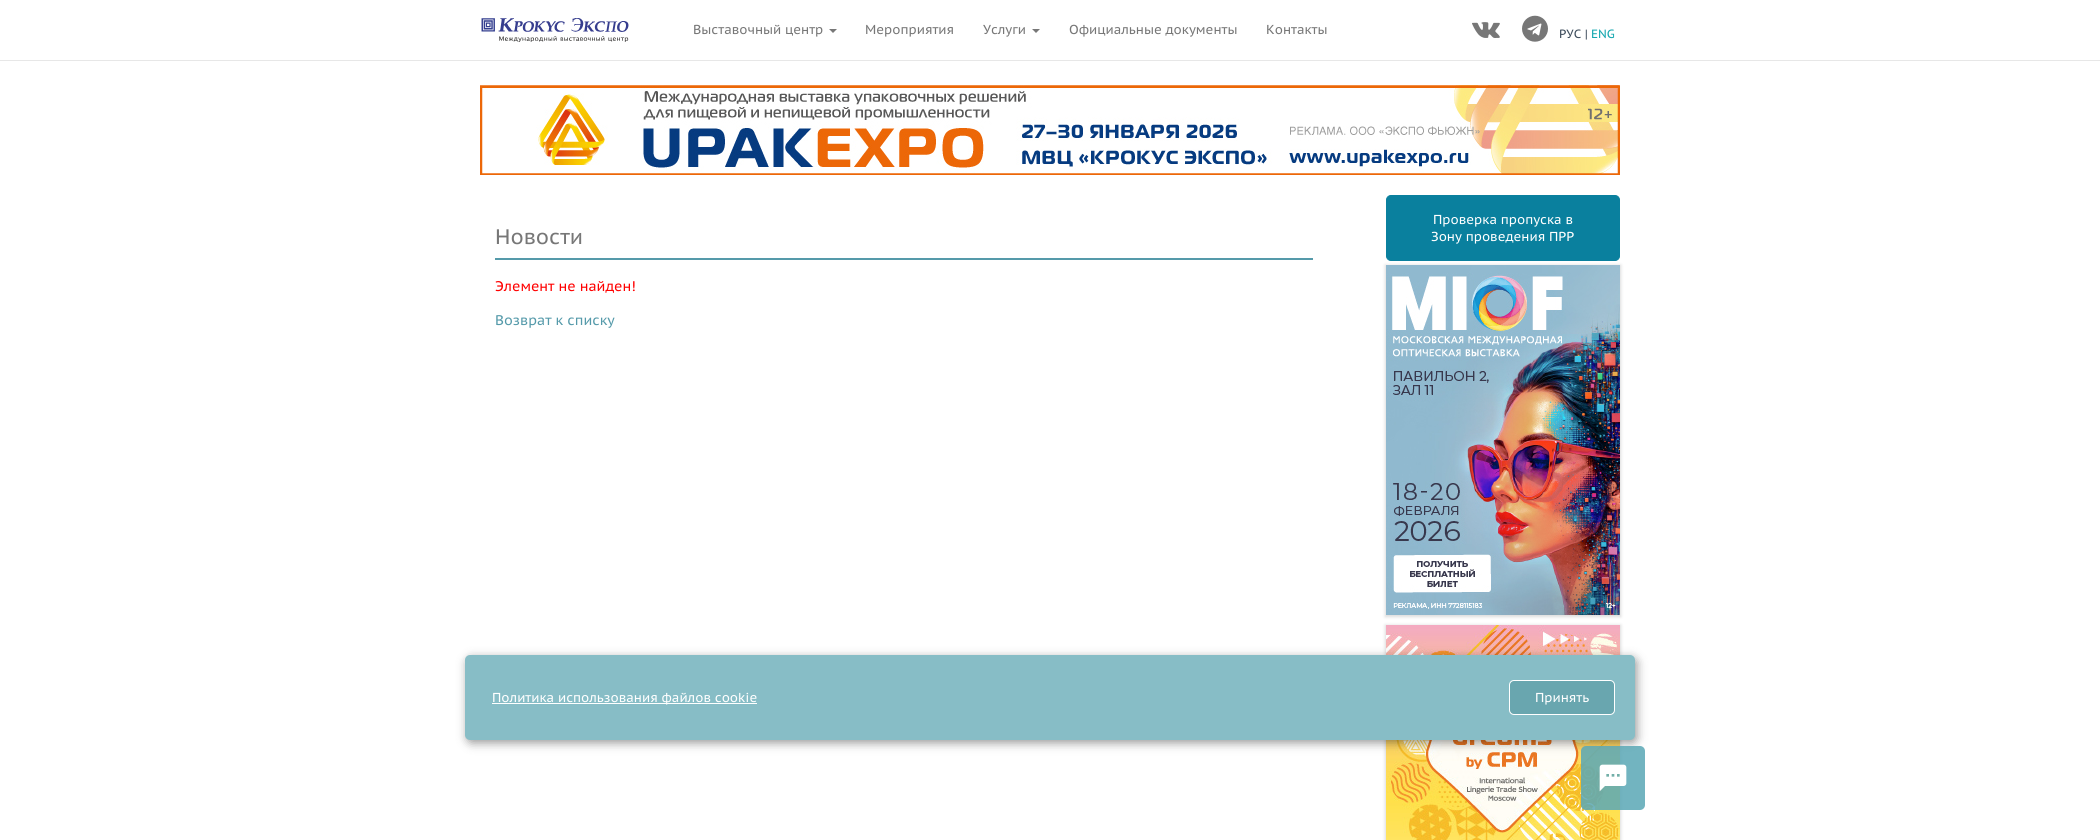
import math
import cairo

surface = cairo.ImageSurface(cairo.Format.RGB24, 2100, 840)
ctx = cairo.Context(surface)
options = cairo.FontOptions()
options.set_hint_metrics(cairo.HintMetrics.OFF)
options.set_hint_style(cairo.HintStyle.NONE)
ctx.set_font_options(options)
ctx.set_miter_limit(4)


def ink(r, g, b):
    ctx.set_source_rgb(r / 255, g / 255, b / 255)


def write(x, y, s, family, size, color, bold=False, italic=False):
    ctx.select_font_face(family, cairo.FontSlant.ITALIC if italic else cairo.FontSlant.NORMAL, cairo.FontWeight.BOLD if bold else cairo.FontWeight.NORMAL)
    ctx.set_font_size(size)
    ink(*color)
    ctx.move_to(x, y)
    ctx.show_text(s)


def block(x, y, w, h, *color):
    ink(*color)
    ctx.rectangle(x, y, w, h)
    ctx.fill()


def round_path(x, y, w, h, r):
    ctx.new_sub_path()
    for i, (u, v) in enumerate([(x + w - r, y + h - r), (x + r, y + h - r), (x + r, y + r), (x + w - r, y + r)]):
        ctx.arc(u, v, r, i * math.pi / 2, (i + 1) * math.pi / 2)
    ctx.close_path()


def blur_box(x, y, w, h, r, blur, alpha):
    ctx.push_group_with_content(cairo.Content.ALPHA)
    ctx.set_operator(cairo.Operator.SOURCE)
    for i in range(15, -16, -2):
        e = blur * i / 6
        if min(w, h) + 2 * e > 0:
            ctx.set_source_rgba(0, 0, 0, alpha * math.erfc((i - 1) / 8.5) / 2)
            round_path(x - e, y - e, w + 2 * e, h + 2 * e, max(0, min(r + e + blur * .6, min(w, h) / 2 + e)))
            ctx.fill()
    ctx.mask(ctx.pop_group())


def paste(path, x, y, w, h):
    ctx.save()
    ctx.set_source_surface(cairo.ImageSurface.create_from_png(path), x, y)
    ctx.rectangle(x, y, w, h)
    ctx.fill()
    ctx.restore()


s1 = dict(family="PT Sans Caption", size=13, color=(119, 119, 119))
s2 = dict(family="PT Sans Caption", size=12, color=(62, 77, 92))
s3 = dict(family="PT Sans Caption", size=12, color=(23, 168, 176))
s4 = dict(family="PT Sans Caption", size=21, color=(119, 119, 119))
s5 = dict(family="PT Sans Caption", size=14, color=(255, 0, 0))
s6 = dict(family="PT Sans Caption", size=14, color=(85, 154, 170))
s7 = dict(family="PT Sans Caption", size=13, color=(255, 255, 255))

ink(255, 255, 255)
ctx.paint()
block(0, 60, 2100, 1, 231, 231, 231)
paste("pic1.png", 481, 18, 148, 24)
write(693, 34, "Выставочный центр", **s1)
ctx.new_path()
ctx.move_to(829, 29)
ctx.line_to(837, 29)
ctx.line_to(833, 33)
ctx.close_path()
ctx.fill()
write(865, 34, "Мероприятия", **s1)
write(983, 34, "Услуги", **s1)
ctx.new_path()
ctx.move_to(1032, 29)
ctx.line_to(1040, 29)
ctx.line_to(1036, 33)
ctx.close_path()
ctx.fill()
write(1069, 34, "Официальные документы", **s1)
write(1266, 34, "Контакты", **s1)
paste("pic2.png", 1472, 22, 28, 16)
paste("pic3.png", 1522, 15, 26, 27)
write(1559, 38, "РУС |", **s2)
write(1591, 38, "ENG", **s3)
paste("pic4.png", 480, 85, 1140, 90)
write(495, 244, "Новости", **s4)
block(495, 258, 818, 2, 85, 154, 170)
write(495, 291, "Элемент не найден!", **s5)
write(495, 325, "Возврат к списку", **s6)
ink(221, 221, 221)
blur_box(1385, 265, 236, 352, 0, 1.5, 1)
ink(10, 128, 158)
round_path(1386.5, 195.5, 233, 65, 4.5)
ctx.fill_preserve()
ctx.set_line_width(1)
ctx.stroke()
write(1433, 224, "Проверка пропуска в", **s7)
write(1431, 241, "Зону проведения ПРР", **s7)
paste("pic5.png", 1386, 265, 234, 350)
ink(221, 221, 221)
blur_box(1385, 625, 236, 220, 0, 1.5, 1)
paste("pic6.png", 1386, 625, 234, 215)
ink(0, 0, 0)
blur_box(467, 658, 1170, 85, 5, 5, 0.4)
ink(135, 189, 198)
round_path(465, 655, 1170, 85, 5)
ctx.fill()
block(492, 703, 265, 1, 255, 255, 255)
write(492, 702, "Политика использования файлов cookie", **s7)
ink(105, 166, 175)
round_path(1509.5, 680.5, 105, 34, 4.5)
ctx.fill_preserve()
ink(255, 255, 255)
ctx.stroke()
write(1535, 702, "Принять", **s7)
ctx.set_source_rgba(0.361, 0.659, 0.714, 0.86)
round_path(1581, 746, 64, 64, 5)
ctx.fill()
paste("pic7.png", 1599, 764, 28, 28)
surface.write_to_png("screenshot.png")
